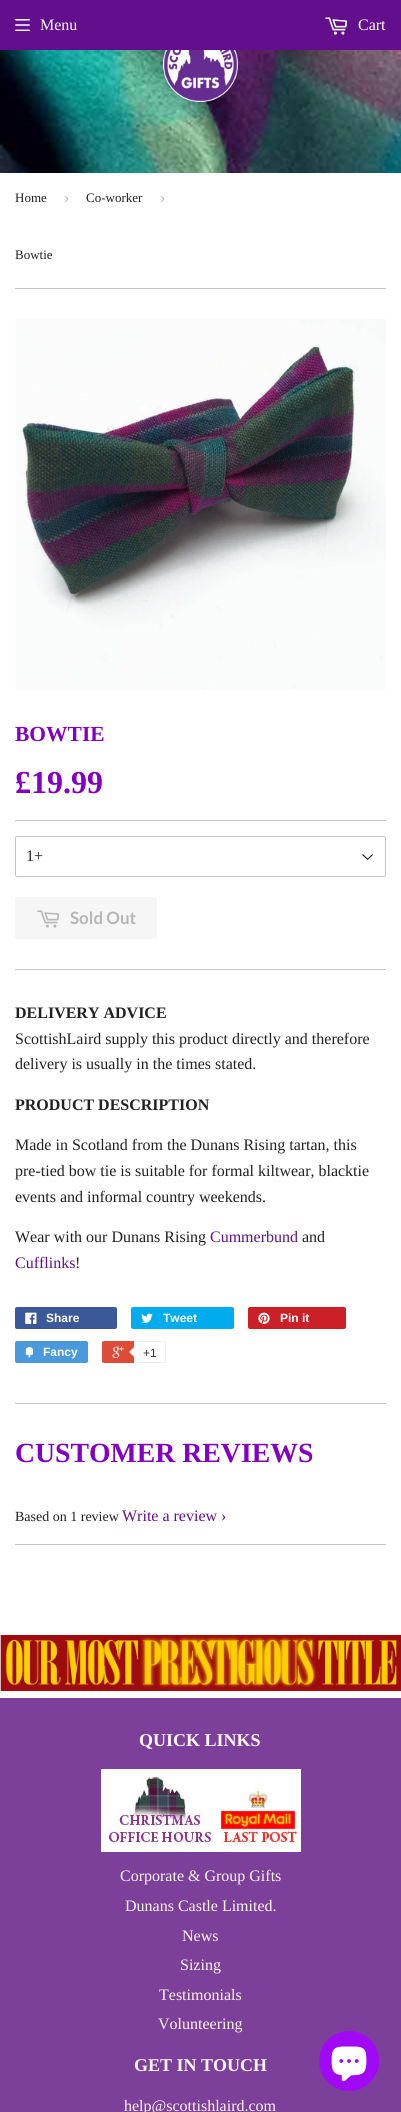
import math
import cairo

surface = cairo.ImageSurface(cairo.Format.RGB24, 401, 2112)
ctx = cairo.Context(surface)
options = cairo.FontOptions()
options.set_hint_metrics(cairo.HintMetrics.OFF)
options.set_hint_style(cairo.HintStyle.NONE)
ctx.set_font_options(options)
ctx.set_miter_limit(4)


def ink(r, g, b):
    ctx.set_source_rgb(r / 255, g / 255, b / 255)


def write(x, y, s, family, size, color, bold=False, italic=False):
    ctx.select_font_face(family, cairo.FontSlant.ITALIC if italic else cairo.FontSlant.NORMAL, cairo.FontWeight.BOLD if bold else cairo.FontWeight.NORMAL)
    ctx.set_font_size(size)
    ink(*color)
    ctx.move_to(x, y)
    ctx.show_text(s)


def block(x, y, w, h, *color):
    ink(*color)
    ctx.rectangle(x, y, w, h)
    ctx.fill()


def round_path(x, y, w, h, r):
    ctx.new_sub_path()
    for i, (u, v) in enumerate([(x + w - r, y + h - r), (x + r, y + h - r), (x + r, y + r), (x + w - r, y + r)]):
        ctx.arc(u, v, r, i * math.pi / 2, (i + 1) * math.pi / 2)
    ctx.close_path()


def paste(path, x, y, w, h):
    ctx.save()
    ctx.set_source_surface(cairo.ImageSurface.create_from_png(path), x, y)
    ctx.rectangle(x, y, w, h)
    ctx.fill()
    ctx.restore()


s1 = dict(family="Liberation Serif", size=16, color=(255, 255, 255))
s2 = dict(family="Liberation Serif", size=13, color=(33, 33, 33))
s3 = dict(family="Liberation Sans", size=15, color=(182, 182, 182))
s4 = dict(family="Liberation Serif", size=21.5, color=(131, 0, 195), bold=True)
s5 = dict(family="Liberation Serif", size=32, color=(131, 0, 195), bold=True)
s6 = dict(family="Liberation Serif", size=16, color=(33, 33, 33))
s7 = dict(family="Lato", size=17, color=(182, 182, 182), bold=True)
s8 = dict(family="Liberation Serif", size=16, color=(33, 33, 33), bold=True)
s9 = dict(family="Liberation Serif", size=16, color=(99, 14, 140))
s10 = dict(family="Liberation Sans", size=12, color=(255, 255, 255), bold=True)
s11 = dict(family="Liberation Sans", size=12, color=(51, 51, 51))
s12 = dict(family="Liberation Serif", size=27.75, color=(131, 0, 195), bold=True)
s13 = dict(family="Liberation Serif", size=14, color=(33, 33, 33))
s14 = dict(family="Liberation Serif", size=18, color=(255, 246, 246), bold=True)
s15 = dict(family="Liberation Serif", size=16, color=(255, 246, 246))

ink(255, 255, 255)
ctx.paint()
block(0, 0, 401, 50, 99, 14, 140)
paste("pic1.png", 15, 19, 15, 12)
write(40, 30, "Menu", **s1)
paste("pic2.png", 325, 17, 23, 18)
write(358, 30, "Cart", **s1)
paste("pic3.png", 0, 50, 401, 123)
paste("pic4.png", 163, 50, 75, 52)
block(15, 288, 371, 1, 199, 197, 197)
write(15, 202, "Home", **s2)
write(64, 203, "›", **s3)
write(86, 202, "Co-worker", **s2)
write(160, 203, "›", **s3)
write(15, 259, "Bowtie", **s2)
paste("pic5.png", 15, 319, 371, 371)
write(15, 741, "BOWTIE", **s4)
write(15, 793, "£19.99", **s5)
block(15, 820, 371, 1, 199, 197, 197)
paste("pic6.png", 362, 854, 11, 6)
round_path(15.5, 836.5, 370, 40, 1.5)
ctx.set_line_width(1)
ctx.stroke()
write(26, 861, "1+", **s6)
ink(246, 246, 246)
round_path(15, 897, 142, 42, 2)
ctx.fill()
paste("pic7.png", 37, 910, 23, 18)
write(70, 924, "Sold Out", **s7)
block(15, 969, 371, 1, 199, 197, 197)
write(15, 1018, "DELIVERY ADVICE", **s8)
write(15, 1044, "ScottishLaird supply this product directly and therefore", **s6)
write(15, 1069, "delivery is usually in the times stated.", **s6)
write(15, 1110, "PRODUCT DESCRIPTION", **s8)
write(15, 1150, "Made in Scotland from the Dunans Rising tartan, this", **s6)
write(15, 1176, "pre-tied bow tie is suitable for formal kiltwear, blacktie", **s6)
write(15, 1202, "events and informal country weekends.", **s6)
write(15, 1242, "Wear with our Dunans Rising", **s6)
write(210, 1242, "Cummerbund", **s9)
write(302, 1242, "and", **s6)
write(15, 1268, "Cufflinks", **s9)
write(75, 1268, "!", **s6)
ink(59, 89, 152)
round_path(15, 1307, 102, 22, 2)
ctx.fill()
paste("pic8.png", 25, 1312, 12, 12)
write(46, 1322, "Share", **s10)
ink(0, 172, 237)
round_path(131, 1307, 103, 22, 2)
ctx.fill()
paste("pic9.png", 141, 1313, 12, 10)
write(163, 1322, "Tweet", **s10)
ink(203, 32, 39)
round_path(248, 1307, 98, 22, 2)
ctx.fill()
paste("pic10.png", 258, 1312, 12, 12)
write(280, 1322, "Pin it", **s10)
ink(73, 153, 220)
round_path(15, 1341, 73, 22, 2)
ctx.fill()
paste("pic11.png", 25, 1347, 9, 11)
write(43, 1356, "Fancy", **s10)
ink(221, 75, 57)
round_path(102, 1341, 62, 22, 2)
ctx.fill()
paste("pic12.png", 112, 1346, 12, 12)
ink(255, 255, 255)
ctx.new_path()
ctx.move_to(134.5, 1341.5)
ctx.line_to(164, 1341.5)
ctx.curve_to(165, 1341.5, 165.5, 1342, 165.5, 1343)
ctx.line_to(165.5, 1361)
ctx.curve_to(165.5, 1362, 165, 1362.5, 164, 1362.5)
ctx.line_to(134.5, 1362.5)
ctx.close_path()
ctx.fill_preserve()
ink(236, 236, 236)
ctx.stroke()
ctx.new_path()
ctx.move_to(135, 1346)
ctx.line_to(135, 1358)
ctx.line_to(129, 1352)
ctx.close_path()
ctx.fill()
ink(255, 255, 255)
ctx.new_path()
ctx.move_to(136, 1346)
ctx.line_to(136, 1358)
ctx.line_to(130, 1352)
ctx.close_path()
ctx.fill()
write(143, 1357, "+1", **s11)
block(15, 1403, 371, 1, 199, 197, 197)
write(15, 1462, "CUSTOMER REVIEWS", **s12)
block(15, 1544, 371, 1, 199, 197, 197)
write(15, 1521, "Based on 1 review", **s13)
write(122, 1521, "Write a review ›", **s9)
paste("pic13.png", 0, 1635, 401, 56)
block(0, 1698, 401, 414, 124, 63, 154)
write(139, 1746, "QUICK LINKS", **s14)
paste("pic14.png", 101, 1769, 200, 83)
write(120, 1881, "Corporate & Group Gifts", **s15)
write(125, 1911, "Dunans Castle Limited.", **s15)
write(182, 1941, "News", **s15)
write(180, 1970, "Sizing", **s15)
write(159, 2000, "Testimonials", **s15)
write(158, 2029, "Volunteering", **s15)
write(134, 2071, "GET IN TOUCH", **s14)
write(124, 2111, "help@scottishlaird.com", **s15)
ink(160, 8, 246)
ctx.new_path()
ctx.arc(349, 2061, 30, 0, 2 * math.pi)
ctx.fill()
paste("pic15.png", 331, 2046, 36, 36)
surface.write_to_png("screenshot.png")
